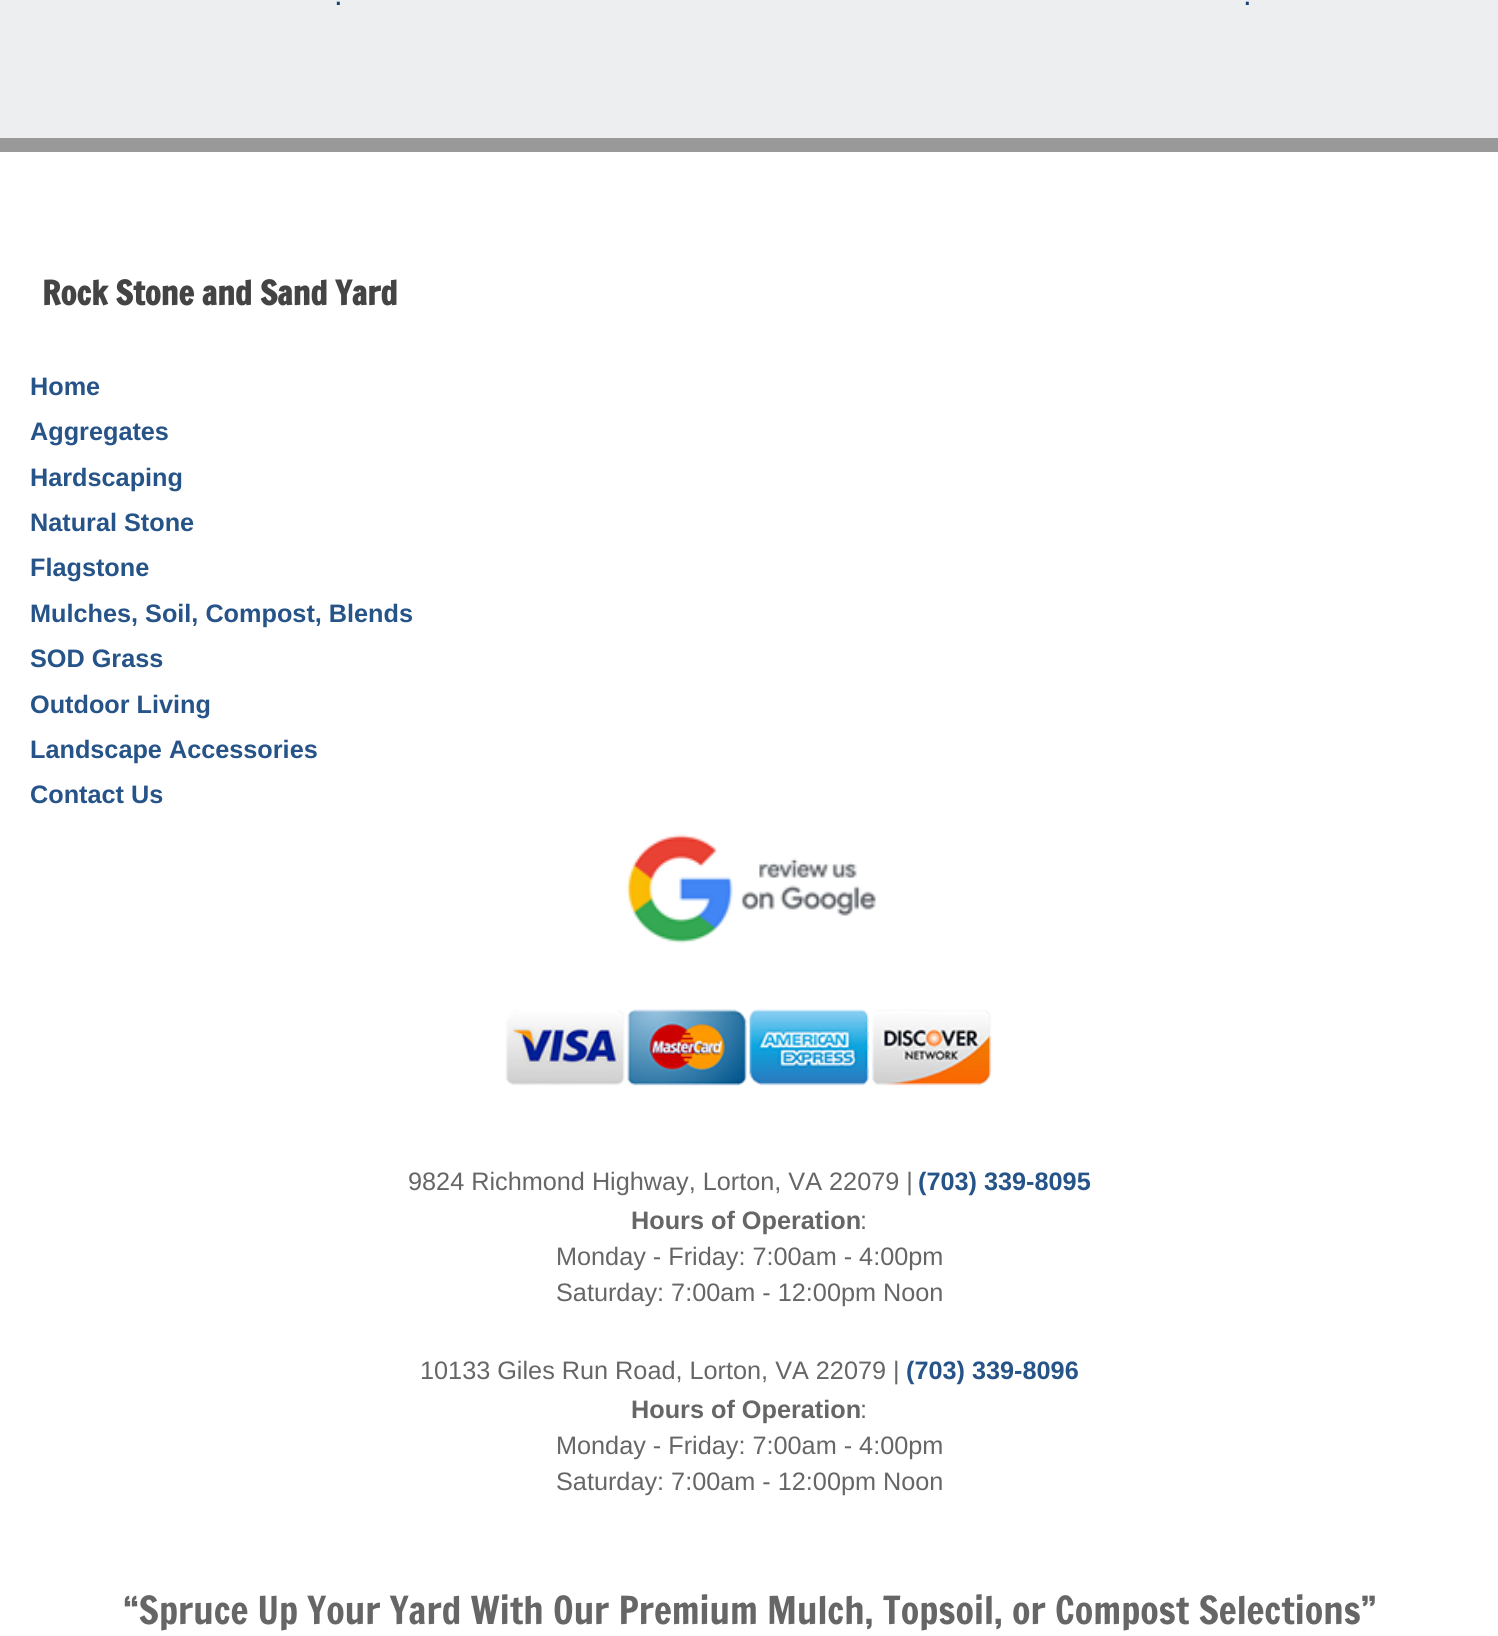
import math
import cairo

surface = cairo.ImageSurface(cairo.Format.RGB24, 1498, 1636)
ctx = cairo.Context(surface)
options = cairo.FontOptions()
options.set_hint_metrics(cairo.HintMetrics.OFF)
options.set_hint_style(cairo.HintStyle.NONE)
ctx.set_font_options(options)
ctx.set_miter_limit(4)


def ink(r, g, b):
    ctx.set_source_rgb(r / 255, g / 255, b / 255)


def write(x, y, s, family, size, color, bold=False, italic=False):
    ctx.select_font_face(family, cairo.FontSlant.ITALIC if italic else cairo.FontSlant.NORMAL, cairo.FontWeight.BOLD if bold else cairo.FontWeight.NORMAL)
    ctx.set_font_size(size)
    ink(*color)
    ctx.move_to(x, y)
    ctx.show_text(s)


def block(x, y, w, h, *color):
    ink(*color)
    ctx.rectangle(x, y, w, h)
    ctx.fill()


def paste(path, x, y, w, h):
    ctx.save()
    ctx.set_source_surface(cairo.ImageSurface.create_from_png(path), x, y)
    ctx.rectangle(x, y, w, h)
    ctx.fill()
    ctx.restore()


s1 = dict(family="Liberation Sans", size=31, color=(23, 67, 116))
s2 = dict(family="Francois One", size=32.75, color=(68, 68, 68), bold=True)
s3 = dict(family="Liberation Sans", size=25.25, color=(38, 84, 136), bold=True)
s4 = dict(family="Liberation Sans", size=25.25, color=(102, 102, 102))
s5 = dict(family="Liberation Sans", size=25.25, color=(102, 102, 102), bold=True)
s6 = dict(family="Francois One", size=37.8, color=(102, 102, 102))

ink(236, 238, 240)
ctx.paint()
write(334, 5, ".", **s1)
write(1243, 5, ".", **s1)
block(0, 152, 1498, 1484, 255, 255, 255)
block(0, 138, 1498, 14, 153, 153, 153)
write(42, 305, "Rock Stone and Sand Yard", **s2)
write(30, 395, "Home", **s3)
write(30, 440, "Aggregates", **s3)
write(30, 486, "Hardscaping", **s3)
write(30, 531, "Natural Stone", **s3)
write(30, 576, "Flagstone", **s3)
write(30, 622, "Mulches, Soil, Compost, Blends", **s3)
write(30, 667, "SOD Grass", **s3)
write(30, 713, "Outdoor Living", **s3)
write(30, 758, "Landscape Accessories", **s3)
write(30, 803, "Contact Us", **s3)
paste("pic1.png", 626, 834, 250, 110)
paste("pic2.png", 505, 1009, 487, 77)
write(408, 1190, "9824 Richmond Highway, Lorton, VA 22079 |", **s4)
write(918, 1190, "(703) 339-8095", **s3)
write(631, 1229, "Hours of Operation", **s5)
write(860, 1229, ":", **s4)
write(556, 1265, "Monday - Friday: 7:00am - 4:00pm", **s4)
write(556, 1301, "Saturday: 7:00am - 12:00pm Noon", **s4)
write(420, 1379, "10133 Giles Run Road, Lorton, VA 22079 |", **s4)
write(906, 1379, "(703) 339-8096", **s3)
write(631, 1418, "Hours of Operation", **s5)
write(860, 1418, ":", **s4)
write(556, 1454, "Monday - Friday: 7:00am - 4:00pm", **s4)
write(556, 1490, "Saturday: 7:00am - 12:00pm Noon", **s4)
write(123, 1624, "“Spruce Up Your Yard With Our Premium Mulch, Topsoil, or Compost Selections”", **s6)
surface.write_to_png("screenshot.png")
